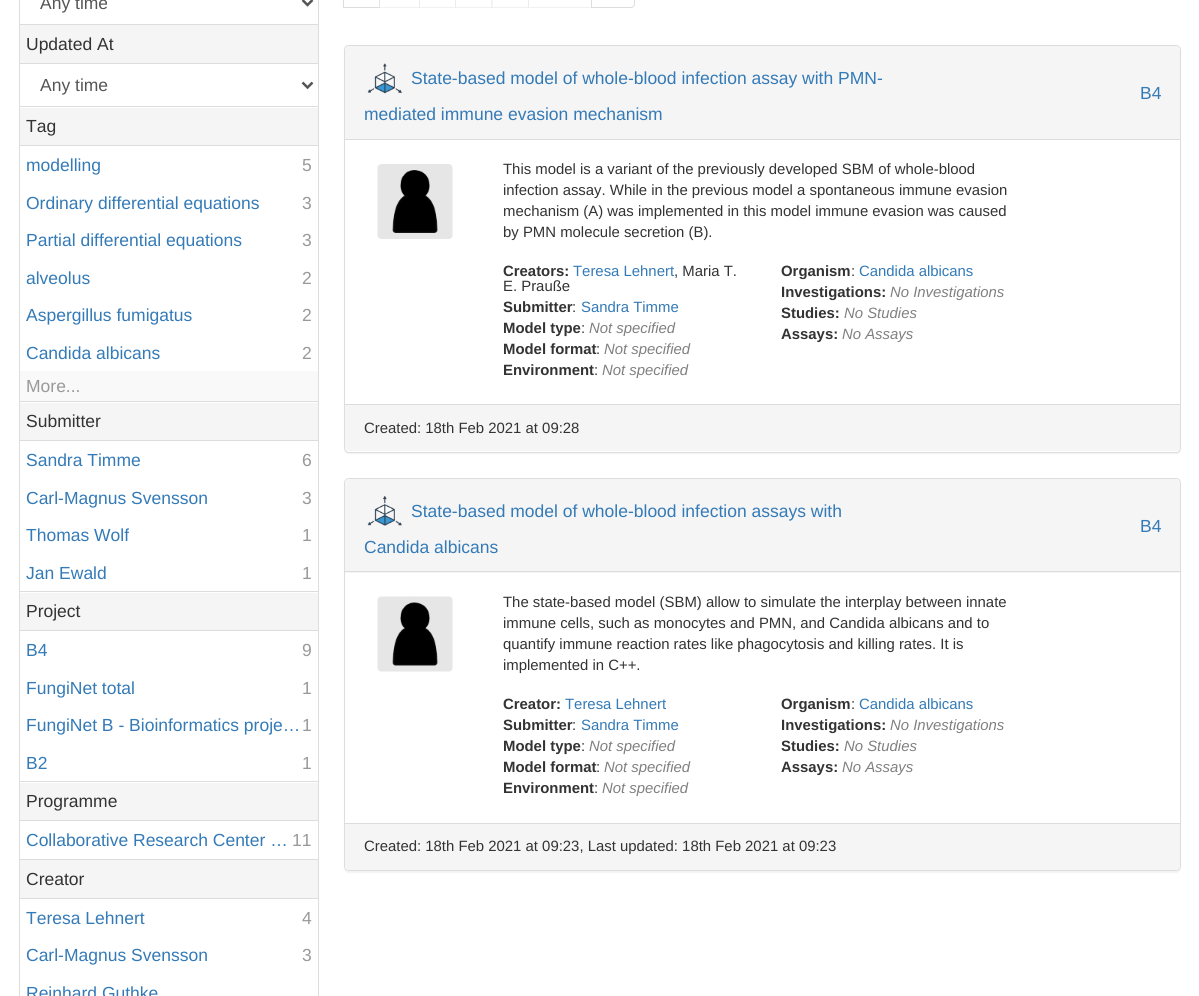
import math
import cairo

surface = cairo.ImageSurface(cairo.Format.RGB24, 1199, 996)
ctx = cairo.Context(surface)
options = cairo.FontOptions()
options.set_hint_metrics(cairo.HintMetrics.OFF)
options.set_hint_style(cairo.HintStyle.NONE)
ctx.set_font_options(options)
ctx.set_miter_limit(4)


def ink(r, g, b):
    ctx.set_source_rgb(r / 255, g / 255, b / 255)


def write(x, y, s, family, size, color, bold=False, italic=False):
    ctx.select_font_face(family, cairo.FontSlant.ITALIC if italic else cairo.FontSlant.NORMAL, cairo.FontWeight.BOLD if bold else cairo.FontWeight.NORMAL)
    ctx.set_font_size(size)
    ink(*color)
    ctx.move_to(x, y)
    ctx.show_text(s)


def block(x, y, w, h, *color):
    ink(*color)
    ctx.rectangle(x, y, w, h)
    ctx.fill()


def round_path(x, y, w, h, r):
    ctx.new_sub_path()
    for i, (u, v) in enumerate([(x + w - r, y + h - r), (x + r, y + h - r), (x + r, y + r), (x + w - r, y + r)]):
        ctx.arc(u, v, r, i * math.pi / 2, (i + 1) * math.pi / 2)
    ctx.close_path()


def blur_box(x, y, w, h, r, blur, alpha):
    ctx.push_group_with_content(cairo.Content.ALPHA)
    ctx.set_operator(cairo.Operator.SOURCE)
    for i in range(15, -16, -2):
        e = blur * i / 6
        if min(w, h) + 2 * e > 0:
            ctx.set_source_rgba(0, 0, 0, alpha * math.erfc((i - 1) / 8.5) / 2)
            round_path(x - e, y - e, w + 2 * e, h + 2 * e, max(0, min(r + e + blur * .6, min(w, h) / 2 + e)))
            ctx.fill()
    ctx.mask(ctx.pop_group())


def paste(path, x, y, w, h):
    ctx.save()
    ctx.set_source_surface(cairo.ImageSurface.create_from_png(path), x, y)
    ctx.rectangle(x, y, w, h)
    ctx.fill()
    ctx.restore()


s1 = dict(family="Liberation Sans", size=17.5, color=(85, 85, 85))
s2 = dict(family="Liberation Sans", size=17.5, color=(51, 51, 51))
s3 = dict(family="Liberation Sans", size=17.5, color=(51, 122, 183))
s4 = dict(family="Liberation Sans", size=17.5, color=(153, 153, 153))
s5 = dict(family="Liberation Sans", size=14.9, color=(51, 51, 51))
s6 = dict(family="Liberation Sans", size=14.9, color=(51, 51, 51), bold=True)
s7 = dict(family="Liberation Sans", size=14.9, color=(51, 122, 183))
s8 = dict(family="Liberation Sans", size=14.9, color=(128, 128, 128), italic=True)

ink(255, 255, 255)
ctx.paint()
block(318, 0, 1, 24, 221, 221, 221)
block(19, 0, 1, 24, 221, 221, 221)
ctx.new_path()
ctx.move_to(302.5, 0)
ctx.line_to(307.5, 5)
ctx.line_to(312.5, 0)
ink(85, 85, 85)
ctx.set_line_width(2.5)
ctx.stroke()
write(40, 9, "Any time", **s1)
block(19, 24, 300, 1, 221, 221, 221)
block(318, 24, 1, 82, 221, 221, 221)
block(19, 24, 1, 82, 221, 221, 221)
block(20, 25, 298, 38, 245, 245, 245)
block(20, 63, 298, 1, 221, 221, 221)
write(26, 50, "Updated At", **s2)
ctx.new_path()
ctx.move_to(302.5, 82.5)
ctx.line_to(307.5, 87.5)
ctx.line_to(312.5, 82.5)
ink(85, 85, 85)
ctx.stroke()
write(40, 91, "Any time", **s1)
block(19, 106, 300, 1, 221, 221, 221)
block(318, 106, 1, 295, 221, 221, 221)
block(19, 106, 1, 295, 221, 221, 221)
block(20, 108, 298, 37, 245, 245, 245)
block(20, 145, 298, 1, 221, 221, 221)
write(26, 132, "Tag", **s2)
write(26, 171, "modelling", **s3)
write(302, 171, "5", **s4)
write(26, 209, "Ordinary differential equations", **s3)
write(302, 209, "3", **s4)
write(26, 246, "Partial differential equations", **s3)
write(302, 246, "3", **s4)
write(26, 284, "alveolus", **s3)
write(302, 284, "2", **s4)
write(26, 321, "Aspergillus fumigatus", **s3)
write(302, 321, "2", **s4)
write(26, 359, "Candida albicans", **s3)
write(302, 359, "2", **s4)
block(20, 371, 298, 30, 249, 249, 249)
write(26, 392, "More...", **s4)
block(19, 401, 300, 1, 221, 221, 221)
block(318, 401, 1, 190, 221, 221, 221)
block(19, 401, 1, 190, 221, 221, 221)
block(20, 403, 298, 37, 245, 245, 245)
block(20, 440, 298, 1, 221, 221, 221)
write(26, 427, "Submitter", **s2)
write(26, 466, "Sandra Timme", **s3)
write(302, 466, "6", **s4)
write(26, 504, "Carl-Magnus Svensson", **s3)
write(302, 504, "3", **s4)
write(26, 541, "Thomas Wolf", **s3)
write(302, 541, "1", **s4)
write(26, 579, "Jan Ewald", **s3)
write(302, 579, "1", **s4)
block(19, 591, 300, 1, 221, 221, 221)
block(318, 591, 1, 190, 221, 221, 221)
block(19, 591, 1, 190, 221, 221, 221)
block(20, 593, 298, 37, 245, 245, 245)
block(20, 630, 298, 1, 221, 221, 221)
write(26, 617, "Project", **s2)
write(26, 656, "B4", **s3)
write(302, 656, "9", **s4)
write(26, 694, "FungiNet total", **s3)
write(302, 694, "1", **s4)
write(26, 731, "FungiNet B - Bioinformatics proje…", **s3)
write(302, 731, "1", **s4)
write(26, 769, "B2", **s3)
write(302, 769, "1", **s4)
block(19, 781, 300, 1, 221, 221, 221)
block(318, 781, 1, 78, 221, 221, 221)
block(19, 781, 1, 78, 221, 221, 221)
block(20, 783, 298, 37, 245, 245, 245)
block(20, 820, 298, 1, 221, 221, 221)
write(26, 807, "Programme", **s2)
write(26, 846, "Collaborative Research Center …", **s3)
write(292, 846, "11", **s4)
block(19, 859, 300, 1, 221, 221, 221)
block(318, 859, 1, 137, 221, 221, 221)
block(19, 859, 1, 137, 221, 221, 221)
block(20, 860, 298, 38, 245, 245, 245)
block(20, 898, 298, 1, 221, 221, 221)
write(26, 885, "Creator", **s2)
write(26, 924, "Teresa Lehnert", **s3)
write(302, 924, "4", **s4)
write(26, 961, "Carl-Magnus Svensson", **s3)
write(302, 961, "3", **s4)
write(26, 999, "Reinhard Guthke", **s3)
ctx.rectangle(343.5, -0.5, 36, 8)
ink(221, 221, 221)
ctx.set_line_width(1)
ctx.stroke()
ctx.set_source_rgba(1, 1, 1, 0.4)
ctx.rectangle(379, 0, 1, 8)
ctx.fill()
ctx.rectangle(379.5, -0.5, 40, 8)
ctx.set_source_rgba(0.867, 0.867, 0.867, 0.4)
ctx.stroke()
ctx.set_source_rgba(1, 1, 1, 0.4)
ctx.rectangle(419, 0, 1, 8)
ctx.fill()
ctx.rectangle(419.5, -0.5, 36, 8)
ctx.set_source_rgba(0.867, 0.867, 0.867, 0.4)
ctx.stroke()
ctx.set_source_rgba(1, 1, 1, 0.4)
ctx.rectangle(455, 0, 1, 8)
ctx.fill()
ctx.rectangle(455.5, -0.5, 37, 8)
ctx.set_source_rgba(0.867, 0.867, 0.867, 0.4)
ctx.stroke()
ctx.set_source_rgba(1, 1, 1, 0.4)
ctx.rectangle(491, 0, 2, 8)
ctx.fill()
ctx.rectangle(491.5, -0.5, 37, 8)
ctx.set_source_rgba(0.867, 0.867, 0.867, 0.4)
ctx.stroke()
ctx.set_source_rgba(1, 1, 1, 0.4)
ctx.rectangle(528, 0, 1, 8)
ctx.fill()
ctx.rectangle(528.5, -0.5, 64, 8)
ctx.set_source_rgba(0.867, 0.867, 0.867, 0.4)
ctx.stroke()
ink(255, 255, 255)
ctx.new_path()
ctx.move_to(591.5, -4.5)
ctx.line_to(631, -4.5)
ctx.curve_to(633, -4.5, 634.5, -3, 634.5, -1)
ctx.line_to(634.5, 4)
ctx.curve_to(634.5, 6, 633, 7.5, 631, 7.5)
ctx.line_to(591.5, 7.5)
ctx.close_path()
ctx.fill_preserve()
ink(221, 221, 221)
ctx.stroke()
ink(0, 0, 0)
blur_box(344, 46, 837, 408, 5, 0.5, 0.05)
ink(255, 255, 255)
round_path(344.5, 45.5, 836, 407, 4.5)
ctx.fill_preserve()
ink(221, 221, 221)
ctx.stroke()
ink(245, 245, 245)
ctx.new_path()
ctx.move_to(349, 46)
ctx.line_to(1176, 46)
ctx.curve_to(1178, 46, 1180, 48, 1180, 50)
ctx.line_to(1180, 140)
ctx.line_to(345, 140)
ctx.line_to(345, 50)
ctx.curve_to(345, 48, 347, 46, 349, 46)
ctx.close_path()
ctx.fill()
block(345, 139, 835, 1, 221, 221, 221)
paste("pic1.png", 367, 63, 35, 31)
write(411, 84, "State-based model of whole-blood infection assay with PMN-", **s3)
write(364, 120, "mediated immune evasion mechanism", **s3)
write(1140, 99, "B4", **s3)
paste("pic2.png", 377, 164, 76, 75)
write(503, 174, "This model is a variant of the previously developed SBM of whole-blood", **s5)
write(503, 195, "infection assay. While in the previous model a spontaneous immune evasion", **s5)
write(503, 216, "mechanism (A) was implemented in this model immune evasion was caused", **s5)
write(503, 237, "by PMN molecule secretion (B).", **s5)
write(503, 276, "Creators:", **s6)
write(573, 276, "Teresa Lehnert", **s7)
write(674, 276, ", Maria T.", **s5)
write(503, 291, "E. Prauße", **s5)
write(503, 312, "Submitter", **s6)
write(572, 312, ":", **s5)
write(581, 312, "Sandra Timme", **s7)
write(503, 333, "Model type", **s6)
write(581, 333, ":", **s5)
write(589, 333, "Not specified", **s8)
write(503, 354, "Model format", **s6)
write(596, 354, ":", **s5)
write(604, 354, "Not specified", **s8)
write(503, 375, "Environment", **s6)
write(594, 375, ":", **s5)
write(602, 375, "Not specified", **s8)
write(781, 276, "Organism", **s6)
write(851, 276, ":", **s5)
write(859, 276, "Candida albicans", **s7)
write(781, 297, "Investigations:", **s6)
write(890, 297, "No Investigations", **s8)
write(781, 318, "Studies:", **s6)
write(844, 318, "No Studies", **s8)
write(781, 339, "Assays:", **s6)
write(842, 339, "No Assays", **s8)
ink(245, 245, 245)
ctx.new_path()
ctx.move_to(345, 404)
ctx.line_to(1180, 404)
ctx.line_to(1180, 447)
ctx.curve_to(1180, 449, 1178, 451, 1176, 451)
ctx.line_to(349, 451)
ctx.curve_to(347, 451, 345, 449, 345, 447)
ctx.close_path()
ctx.fill()
block(345, 404, 835, 1, 221, 221, 221)
write(364, 433, "Created: 18th Feb 2021 at 09:28", **s5)
ctx.save()
ctx.set_fill_rule(cairo.FillRule.EVEN_ODD)
ctx.new_path()
ctx.move_to(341, 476)
ctx.line_to(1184, 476)
ctx.line_to(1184, 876)
ctx.line_to(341, 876)
ctx.close_path()
ctx.move_to(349, 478)
ctx.line_to(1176, 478)
ctx.curve_to(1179, 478, 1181, 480, 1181, 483)
ctx.line_to(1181, 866)
ctx.curve_to(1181, 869, 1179, 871, 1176, 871)
ctx.line_to(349, 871)
ctx.curve_to(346, 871, 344, 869, 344, 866)
ctx.line_to(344, 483)
ctx.curve_to(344, 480, 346, 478, 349, 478)
ctx.close_path()
ctx.clip()
ink(0, 0, 0)
blur_box(344, 479, 837, 394, 5, 0.5, 0.05)
ctx.restore()
round_path(344.5, 478.5, 836, 392, 4.5)
ink(221, 221, 221)
ctx.stroke()
ink(245, 245, 245)
ctx.new_path()
ctx.move_to(349, 479)
ctx.line_to(1176, 479)
ctx.curve_to(1178, 479, 1180, 481, 1180, 483)
ctx.line_to(1180, 573)
ctx.line_to(345, 573)
ctx.line_to(345, 483)
ctx.curve_to(345, 481, 347, 479, 349, 479)
ctx.close_path()
ctx.fill()
block(345, 571, 835, 1, 221, 221, 221)
paste("pic3.png", 367, 495, 35, 31)
write(411, 517, "State-based model of whole-blood infection assays with", **s3)
write(364, 553, "Candida albicans", **s3)
write(1140, 532, "B4", **s3)
paste("pic4.png", 377, 596, 76, 76)
write(503, 607, "The state-based model (SBM) allow to simulate the interplay between innate", **s5)
write(503, 628, "immune cells, such as monocytes and PMN, and Candida albicans and to", **s5)
write(503, 649, "quantify immune reaction rates like phagocytosis and killing rates. It is", **s5)
write(503, 670, "implemented in C++.", **s5)
write(503, 709, "Creator:", **s6)
write(565, 709, "Teresa Lehnert", **s7)
write(503, 730, "Submitter", **s6)
write(572, 730, ":", **s5)
write(581, 730, "Sandra Timme", **s7)
write(503, 751, "Model type", **s6)
write(581, 751, ":", **s5)
write(589, 751, "Not specified", **s8)
write(503, 772, "Model format", **s6)
write(596, 772, ":", **s5)
write(604, 772, "Not specified", **s8)
write(503, 793, "Environment", **s6)
write(594, 793, ":", **s5)
write(602, 793, "Not specified", **s8)
write(781, 709, "Organism", **s6)
write(851, 709, ":", **s5)
write(859, 709, "Candida albicans", **s7)
write(781, 730, "Investigations:", **s6)
write(890, 730, "No Investigations", **s8)
write(781, 751, "Studies:", **s6)
write(844, 751, "No Studies", **s8)
write(781, 772, "Assays:", **s6)
write(842, 772, "No Assays", **s8)
ink(245, 245, 245)
ctx.new_path()
ctx.move_to(345, 823)
ctx.line_to(1180, 823)
ctx.line_to(1180, 866)
ctx.curve_to(1180, 868, 1178, 870, 1176, 870)
ctx.line_to(349, 870)
ctx.curve_to(347, 870, 345, 868, 345, 866)
ctx.close_path()
ctx.fill()
block(345, 823, 835, 1, 221, 221, 221)
write(364, 851, "Created: 18th Feb 2021 at 09:23, Last updated: 18th Feb 2021 at 09:23", **s5)
surface.write_to_png("screenshot.png")
